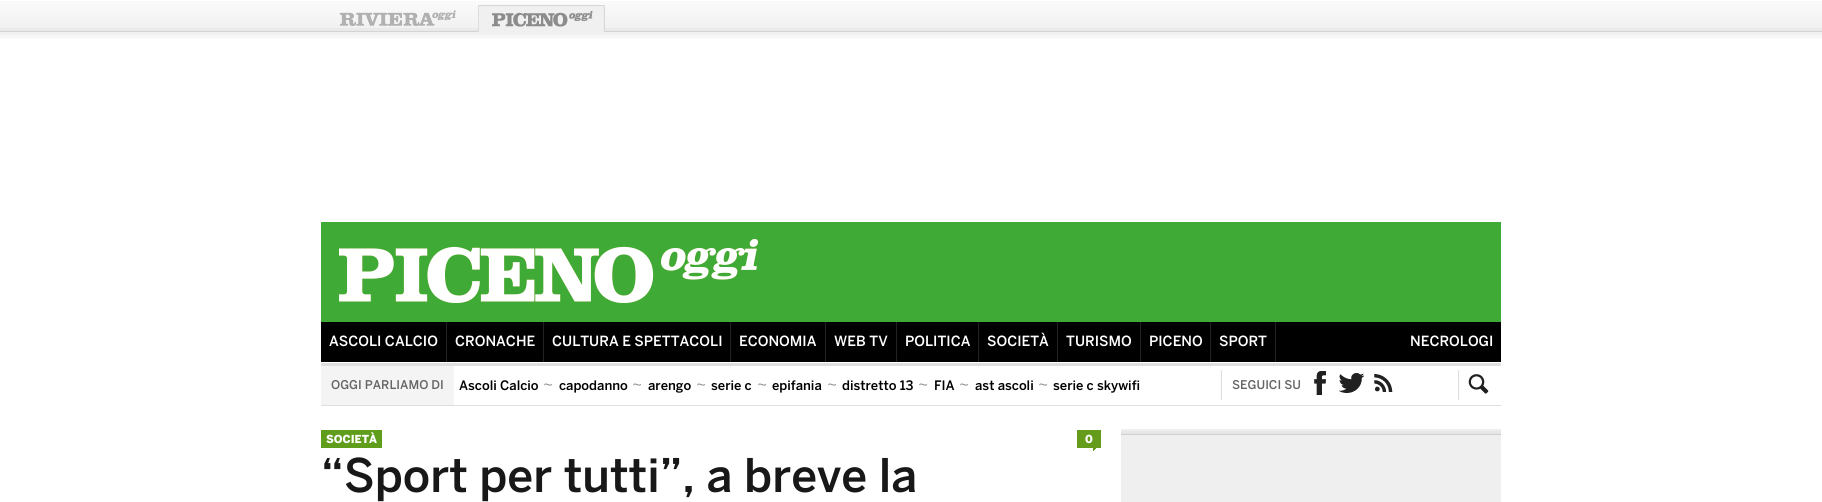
import math
import cairo

surface = cairo.ImageSurface(cairo.Format.RGB24, 1822, 502)
ctx = cairo.Context(surface)
options = cairo.FontOptions()
options.set_hint_metrics(cairo.HintMetrics.OFF)
options.set_hint_style(cairo.HintStyle.NONE)
ctx.set_font_options(options)
ctx.set_miter_limit(4)


def ink(r, g, b):
    ctx.set_source_rgb(r / 255, g / 255, b / 255)


def write(x, y, s, family, size, color, bold=False, italic=False):
    ctx.select_font_face(family, cairo.FontSlant.ITALIC if italic else cairo.FontSlant.NORMAL, cairo.FontWeight.BOLD if bold else cairo.FontWeight.NORMAL)
    ctx.set_font_size(size)
    ink(*color)
    ctx.move_to(x, y)
    ctx.show_text(s)


def block(x, y, w, h, *color):
    ink(*color)
    ctx.rectangle(x, y, w, h)
    ctx.fill()


def paste(path, x, y, w, h):
    ctx.save()
    ctx.set_source_surface(cairo.ImageSurface.create_from_png(path), x, y)
    ctx.rectangle(x, y, w, h)
    ctx.fill()
    ctx.restore()


s1 = dict(family="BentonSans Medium", size=14, color=(255, 255, 255))
s2 = dict(family="BentonSans Medium", size=12, color=(102, 102, 102))
s3 = dict(family="BentonSans Medium", size=13, color=(0, 0, 0))
s4 = dict(family="BentonSans", size=16, color=(153, 153, 153))
s5 = dict(family="BentonSans Black", size=11, color=(255, 255, 255))
s6 = dict(family="BentonSans Medium", size=46, color=(24, 24, 24))

ink(255, 255, 255)
ctx.paint()
paste("pic1.png", 0, 1, 1822, 38)
paste("pic2.png", 339, 10, 117, 17)
paste("pic3.png", 478, 5, 127, 27)
block(321, 222, 1180, 100, 63, 171, 54)
paste("pic4.png", 339, 239, 419, 64)
block(321, 322, 1180, 40, 0, 0, 0)
block(446, 322, 1, 40, 34, 34, 34)
write(329, 346, "ASCOLI CALCIO", **s1)
block(543, 322, 1, 40, 34, 34, 34)
write(455, 346, "CRONACHE", **s1)
block(730, 322, 1, 40, 34, 34, 34)
write(552, 346, "CULTURA E SPETTACOLI", **s1)
block(825, 322, 1, 40, 34, 34, 34)
write(739, 346, "ECONOMIA", **s1)
block(896, 322, 1, 40, 34, 34, 34)
write(834, 346, "WEB TV", **s1)
block(978, 322, 1, 40, 34, 34, 34)
write(905, 346, "POLITICA", **s1)
block(1057, 322, 1, 40, 34, 34, 34)
write(987, 346, "SOCIETÀ", **s1)
block(1140, 322, 1, 40, 34, 34, 34)
write(1066, 346, "TURISMO", **s1)
block(1210, 322, 1, 40, 34, 34, 34)
write(1149, 346, "PICENO", **s1)
block(1275, 322, 1, 40, 34, 34, 34)
write(1219, 346, "SPORT", **s1)
write(1410, 346, "NECROLOGI", **s1)
paste("pic5.png", 321, 363, 1180, 43)
block(321, 366, 133, 39, 244, 244, 244)
write(331, 389, "OGGI PARLIAMO DI", **s2)
write(459, 390, "Ascoli Calcio", **s3)
write(543, 390, "~", **s4)
write(559, 390, "capodanno", **s3)
write(632, 390, "~", **s4)
write(648, 390, "arengo", **s3)
write(696, 390, "~", **s4)
write(711, 390, "serie c", **s3)
write(757, 390, "~", **s4)
write(772, 390, "epifania", **s3)
write(827, 390, "~", **s4)
write(842, 390, "distretto 13", **s3)
write(918, 390, "~", **s4)
write(934, 390, "FIA", **s3)
write(959, 390, "~", **s4)
write(975, 390, "ast ascoli", **s3)
write(1038, 390, "~", **s4)
write(1053, 390, "serie c skywifi", **s3)
block(1221, 370, 1, 30, 221, 221, 221)
write(1232, 389, "SEGUICI SU", **s2)
paste("pic6.png", 1314, 371, 12, 24)
paste("pic7.png", 1339, 373, 26, 20)
paste("pic8.png", 1374, 374, 19, 18)
paste("pic9.png", 1468, 374, 21, 20)
block(1458, 370, 1, 30, 221, 221, 221)
block(321, 430, 61, 18, 96, 157, 27)
write(326, 443, "SOCIETÀ", **s5)
write(321, 492, "“Sport per tutti”, a breve la", **s6)
paste("pic10.png", 1077, 430, 24, 21)
write(1085, 443, "0", **s5)
block(1121, 429, 380, 73, 239, 239, 239)
paste("pic11.png", 1121, 431, 380, 4)
surface.write_to_png("screenshot.png")
